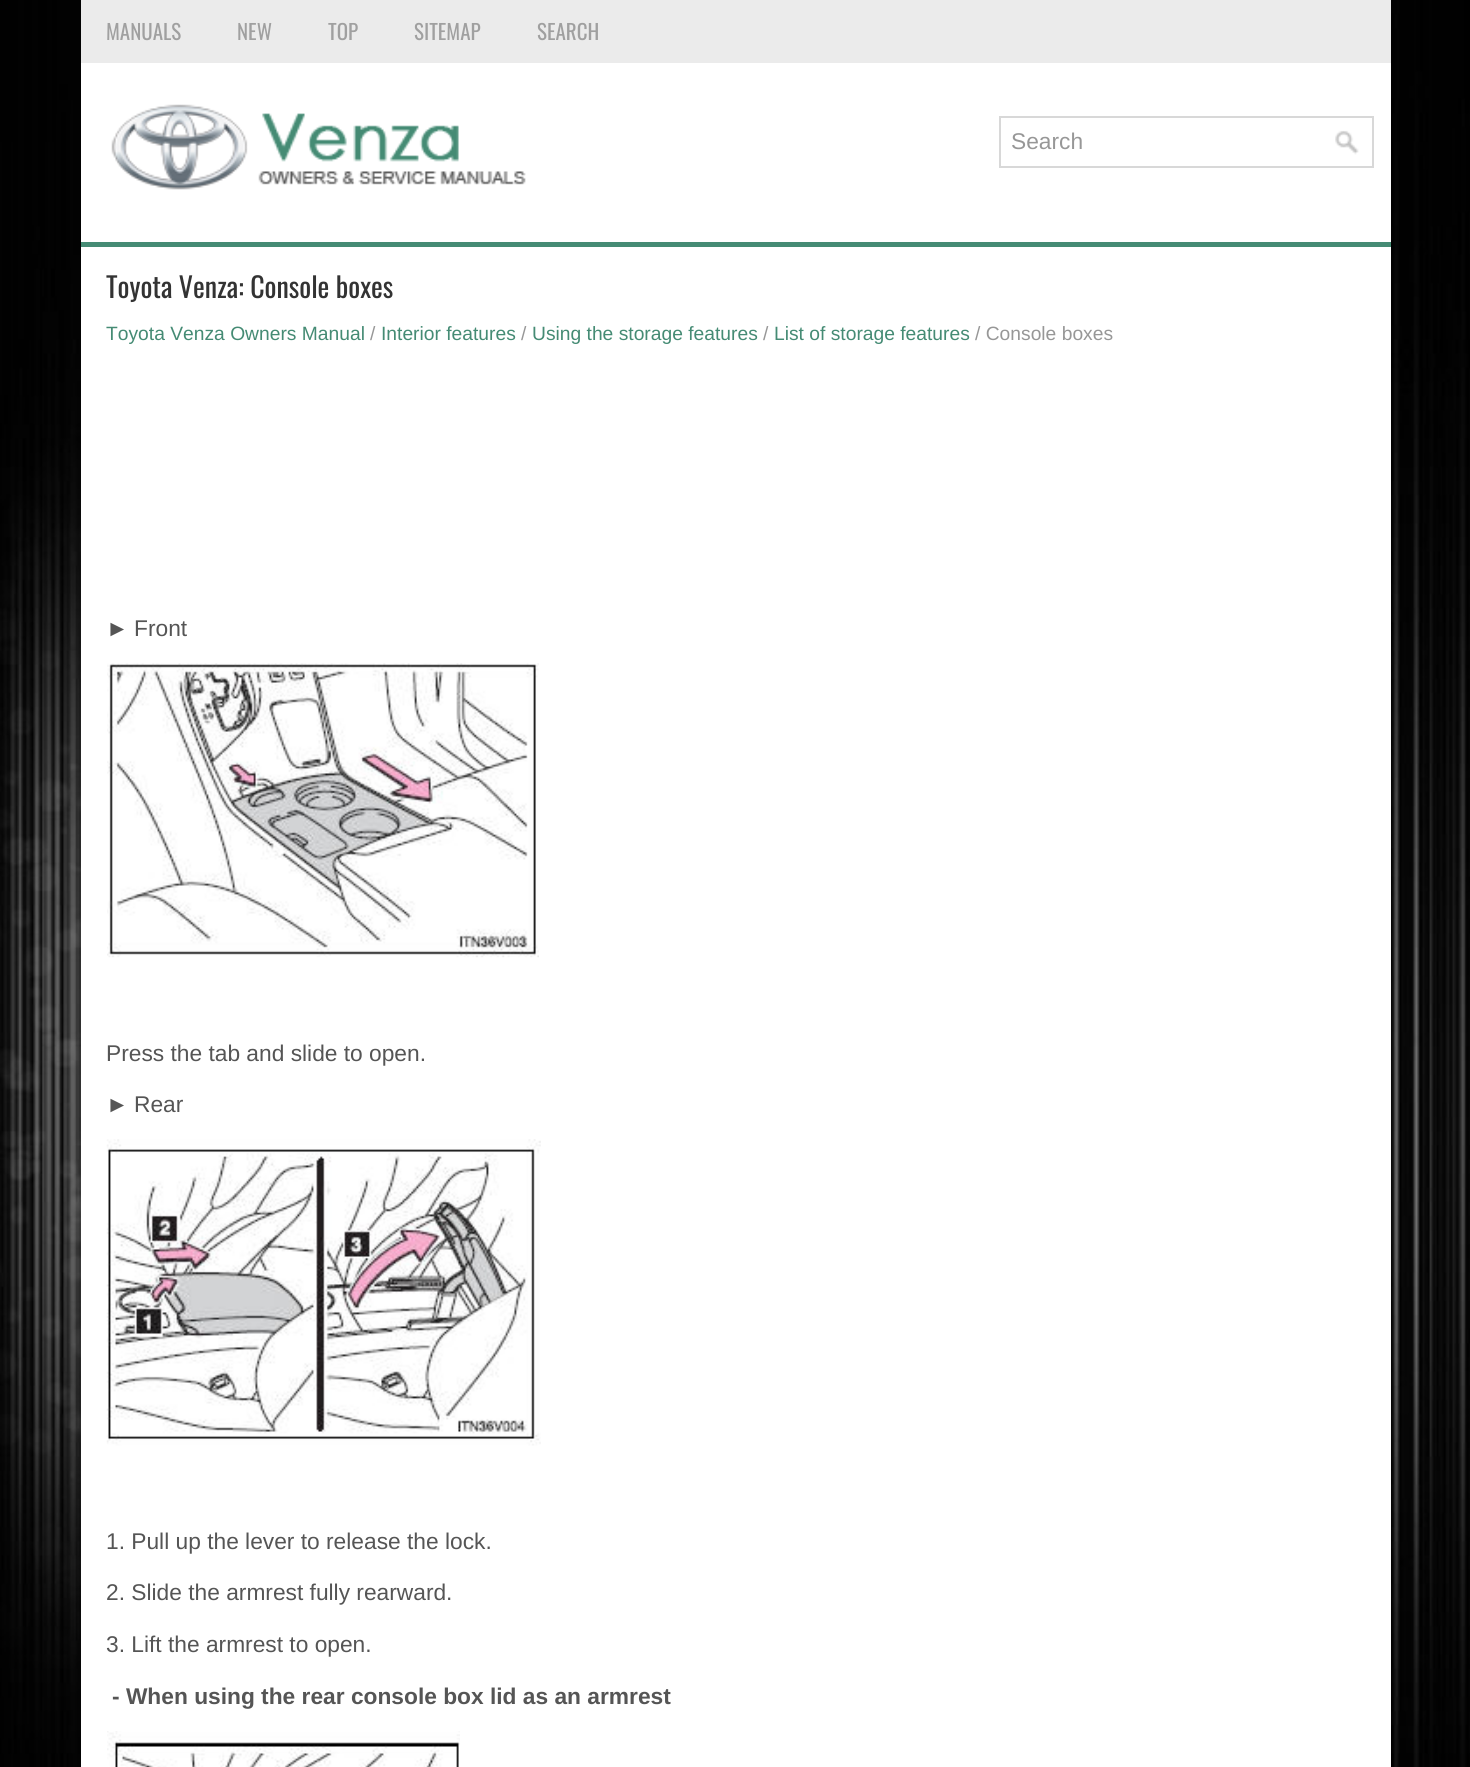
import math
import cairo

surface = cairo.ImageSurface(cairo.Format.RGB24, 1470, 1767)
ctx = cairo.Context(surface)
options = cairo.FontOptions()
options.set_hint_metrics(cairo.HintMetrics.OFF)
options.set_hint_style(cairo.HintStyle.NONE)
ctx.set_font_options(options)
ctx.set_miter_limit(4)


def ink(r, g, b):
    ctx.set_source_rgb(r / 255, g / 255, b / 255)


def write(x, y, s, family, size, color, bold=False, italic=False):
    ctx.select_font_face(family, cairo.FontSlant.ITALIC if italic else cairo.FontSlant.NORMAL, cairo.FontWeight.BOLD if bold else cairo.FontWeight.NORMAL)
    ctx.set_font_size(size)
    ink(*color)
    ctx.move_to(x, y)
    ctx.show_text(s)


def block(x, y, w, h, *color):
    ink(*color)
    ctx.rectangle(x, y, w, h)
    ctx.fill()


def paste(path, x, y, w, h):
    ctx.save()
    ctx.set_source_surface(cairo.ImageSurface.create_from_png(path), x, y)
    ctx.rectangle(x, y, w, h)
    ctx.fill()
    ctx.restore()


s1 = dict(family="Oswald", size=21, color=(160, 160, 160))
s2 = dict(family="Liberation Sans", size=22.75, color=(151, 151, 151))
s3 = dict(family="Oswald", size=28, color=(51, 51, 51))
s4 = dict(family="Liberation Sans", size=19.25, color=(69, 139, 116))
s5 = dict(family="Liberation Sans", size=19.25, color=(151, 151, 151))
s6 = dict(family="Liberation Serif", size=22.75, color=(85, 85, 85))
s7 = dict(family="Liberation Sans", size=22.75, color=(85, 85, 85))
s8 = dict(family="Liberation Sans", size=22.75, color=(85, 85, 85), bold=True)

ink(255, 255, 255)
ctx.paint()
paste("pic1.png", 0, 0, 1470, 1767)
block(81, 0, 1310, 63, 235, 235, 235)
write(106, 40, "MANUALS", **s1)
write(237, 40, "NEW", **s1)
write(328, 40, "TOP", **s1)
write(414, 40, "SITEMAP", **s1)
write(537, 40, "SEARCH", **s1)
block(81, 63, 1310, 179, 255, 255, 255)
block(81, 242, 1310, 5, 69, 139, 116)
paste("pic2.png", 111, 104, 415, 86)
ctx.rectangle(1000, 117, 373, 50)
ink(216, 216, 216)
ctx.stroke()
write(1011, 149, "Search", **s2)
paste("pic3.png", 1335, 130, 24, 25)
block(81, 247, 1310, 1520, 255, 255, 255)
write(106, 298, "Toyota Venza: Console boxes", **s3)
write(106, 340, "Toyota Venza Owners Manual", **s4)
write(370, 340, "/", **s5)
write(381, 340, "Interior features", **s4)
write(521, 340, "/", **s5)
write(532, 340, "Using the storage features", **s4)
write(763, 340, "/", **s5)
write(774, 340, "List of storage features", **s4)
write(975, 340, "/ Console boxes", **s5)
write(106, 636, "►", **s6)
write(134, 636, "Front", **s7)
paste("pic4.png", 107, 663, 432, 295)
write(106, 1061, "Press the tab and slide to open.", **s7)
write(106, 1112, "►", **s6)
write(134, 1112, "Rear", **s7)
paste("pic5.png", 106, 1139, 435, 307)
write(106, 1549, "1. Pull up the lever to release the lock.", **s7)
write(106, 1600, "2. Slide the armrest fully rearward.", **s7)
write(106, 1652, "3. Lift the armrest to open.", **s7)
write(112, 1704, "- When using the rear console box lid as an armrest", **s8)
paste("pic6.png", 107, 1731, 353, 36)
surface.write_to_png("screenshot.png")
